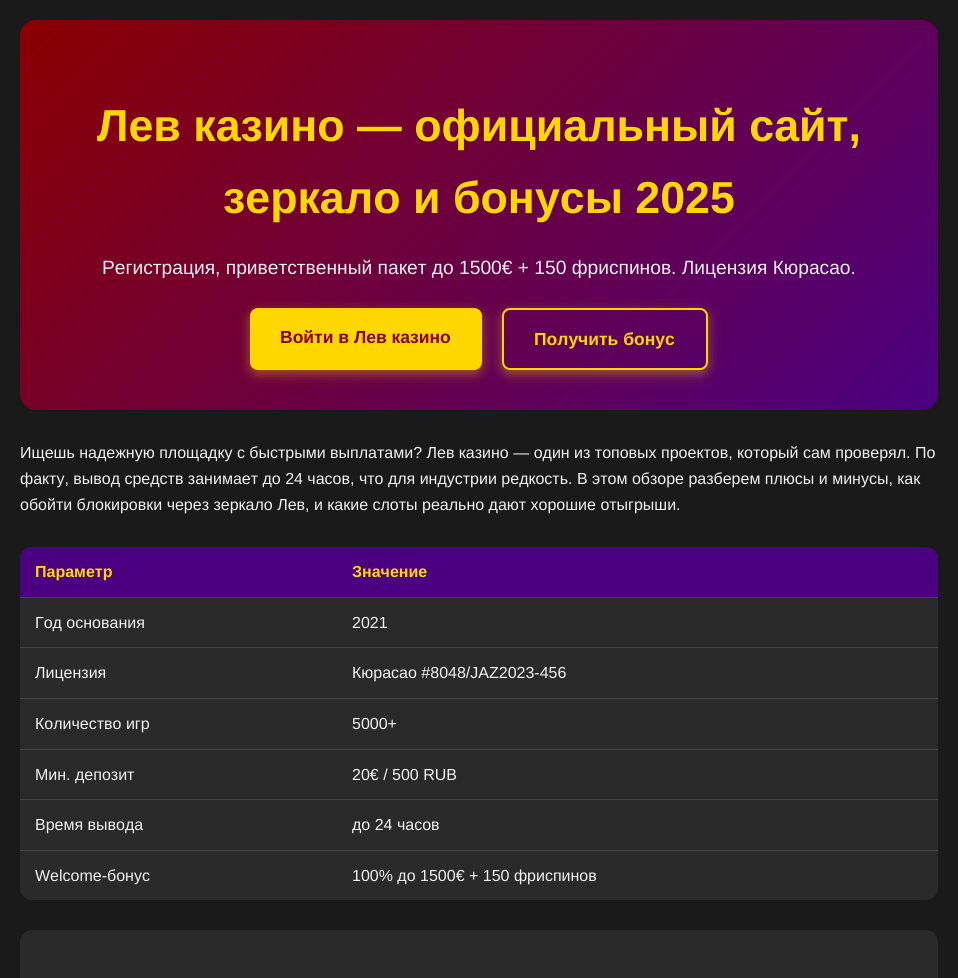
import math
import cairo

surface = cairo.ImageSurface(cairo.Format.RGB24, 958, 978)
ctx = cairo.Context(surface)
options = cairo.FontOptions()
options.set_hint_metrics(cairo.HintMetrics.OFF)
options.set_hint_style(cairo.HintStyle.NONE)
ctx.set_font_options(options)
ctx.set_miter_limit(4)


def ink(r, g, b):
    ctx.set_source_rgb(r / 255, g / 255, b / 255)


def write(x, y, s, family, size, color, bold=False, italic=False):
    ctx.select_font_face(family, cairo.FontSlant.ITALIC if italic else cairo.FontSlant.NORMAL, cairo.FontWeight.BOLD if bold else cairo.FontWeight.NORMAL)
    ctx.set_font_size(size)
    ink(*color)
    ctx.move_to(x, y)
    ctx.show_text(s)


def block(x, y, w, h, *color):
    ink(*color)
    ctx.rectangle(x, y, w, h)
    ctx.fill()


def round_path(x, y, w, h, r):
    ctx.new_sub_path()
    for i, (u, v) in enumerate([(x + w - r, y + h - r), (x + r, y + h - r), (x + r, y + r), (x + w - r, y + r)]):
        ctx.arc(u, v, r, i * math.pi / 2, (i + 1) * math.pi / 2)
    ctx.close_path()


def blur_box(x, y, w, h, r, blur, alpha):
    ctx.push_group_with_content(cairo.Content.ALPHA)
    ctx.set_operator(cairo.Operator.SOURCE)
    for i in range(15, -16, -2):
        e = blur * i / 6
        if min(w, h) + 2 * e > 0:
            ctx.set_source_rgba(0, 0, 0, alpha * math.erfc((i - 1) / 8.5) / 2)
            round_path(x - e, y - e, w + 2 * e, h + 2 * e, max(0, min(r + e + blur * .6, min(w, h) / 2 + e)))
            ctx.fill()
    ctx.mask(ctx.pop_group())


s1 = dict(family="Liberation Sans", size=44.75, color=(255, 215, 0), bold=True)
s2 = dict(family="Liberation Sans", size=19.2, color=(240, 240, 240))
s3 = dict(family="Liberation Sans", size=17.5, color=(139, 0, 0), bold=True)
s4 = dict(family="Liberation Sans", size=17.5, color=(255, 215, 0), bold=True)
s5 = dict(family="Liberation Sans", size=16, color=(240, 240, 240))
s6 = dict(family="Liberation Sans", size=16, color=(255, 215, 0), bold=True)

ink(26, 26, 26)
ctx.paint()
gradient = cairo.LinearGradient(152, -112, 806, 542)
gradient.add_color_stop_rgba(0, 0.545, 0, 0, 1)
gradient.add_color_stop_rgba(1, 0.294, 0, 0.51, 1)
ctx.set_source(gradient)
round_path(20, 20, 918, 390, 16)
ctx.fill()
write(97, 141, "Лев казино — официальный сайт,", **s1)
write(223, 213, "зеркало и бонусы 2025", **s1)
write(102, 274, "Регистрация, приветственный пакет до 1500€ + 150 фриспинов. Лицензия Кюрасао.", **s2)
ink(255, 215, 0)
blur_box(250, 312, 232, 62, 8, 6, 0.4)
ink(255, 215, 0)
round_path(250, 308, 232, 62, 8)
ctx.fill()
write(280, 343, "Войти в Лев казино", **s3)
ctx.save()
ctx.set_fill_rule(cairo.FillRule.EVEN_ODD)
ctx.new_path()
ctx.move_to(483, 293)
ctx.line_to(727, 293)
ctx.line_to(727, 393)
ctx.line_to(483, 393)
ctx.close_path()
ctx.move_to(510, 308)
ctx.line_to(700, 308)
ctx.curve_to(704.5, 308, 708, 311.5, 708, 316)
ctx.line_to(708, 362)
ctx.curve_to(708, 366.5, 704.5, 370, 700, 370)
ctx.line_to(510, 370)
ctx.curve_to(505.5, 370, 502, 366.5, 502, 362)
ctx.line_to(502, 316)
ctx.curve_to(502, 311.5, 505.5, 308, 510, 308)
ctx.close_path()
ctx.clip()
ink(255, 215, 0)
blur_box(502, 312, 206, 62, 8, 6, 0.4)
ctx.restore()
round_path(503, 309, 204, 60, 7)
ink(255, 215, 0)
ctx.stroke()
write(534, 345, "Получить бонус", **s4)
write(20, 458, "Ищешь надежную площадку с быстрыми выплатами? Лев казино — один из топовых проектов, который сам проверял. По", **s5)
write(20, 484, "факту, вывод средств занимает до 24 часов, что для индустрии редкость. В этом обзоре разберем плюсы и минусы, как", **s5)
write(20, 510, "обойти блокировки через зеркало Лев, и какие слоты реально дают хорошие отыгрыши.", **s5)
ink(42, 42, 42)
round_path(20, 547, 918, 353, 12)
ctx.fill()
ink(75, 0, 130)
ctx.new_path()
ctx.move_to(32, 547)
ctx.line_to(337, 547)
ctx.line_to(337, 597)
ctx.line_to(20, 597)
ctx.line_to(20, 559)
ctx.curve_to(20, 552.5, 25.5, 547, 32, 547)
ctx.close_path()
ctx.fill()
write(35, 577, "Параметр", **s6)
ink(75, 0, 130)
ctx.new_path()
ctx.move_to(337, 547)
ctx.line_to(926, 547)
ctx.curve_to(932.5, 547, 938, 552.5, 938, 559)
ctx.line_to(938, 597)
ctx.line_to(337, 597)
ctx.close_path()
ctx.fill()
block(20, 597, 918, 1, 68, 68, 68)
write(352, 577, "Значение", **s6)
write(35, 628, "Год основания", **s5)
block(20, 647, 918, 1, 68, 68, 68)
write(352, 628, "2021", **s5)
write(35, 678, "Лицензия", **s5)
block(20, 698, 918, 1, 68, 68, 68)
write(352, 678, "Кюрасао #8048/JAZ2023-456", **s5)
write(35, 729, "Количество игр", **s5)
block(20, 749, 918, 1, 68, 68, 68)
write(352, 729, "5000+", **s5)
write(35, 780, "Мин. депозит", **s5)
block(20, 799, 918, 1, 68, 68, 68)
write(352, 780, "20€ / 500 RUB", **s5)
write(35, 830, "Время вывода", **s5)
block(20, 850, 918, 1, 68, 68, 68)
write(352, 830, "до 24 часов", **s5)
write(35, 881, "Welcome-бонус", **s5)
write(352, 881, "100% до 1500€ + 150 фриспинов", **s5)
ink(42, 42, 42)
round_path(20, 930, 918, 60, 12)
ctx.fill()
surface.write_to_png("screenshot.png")
